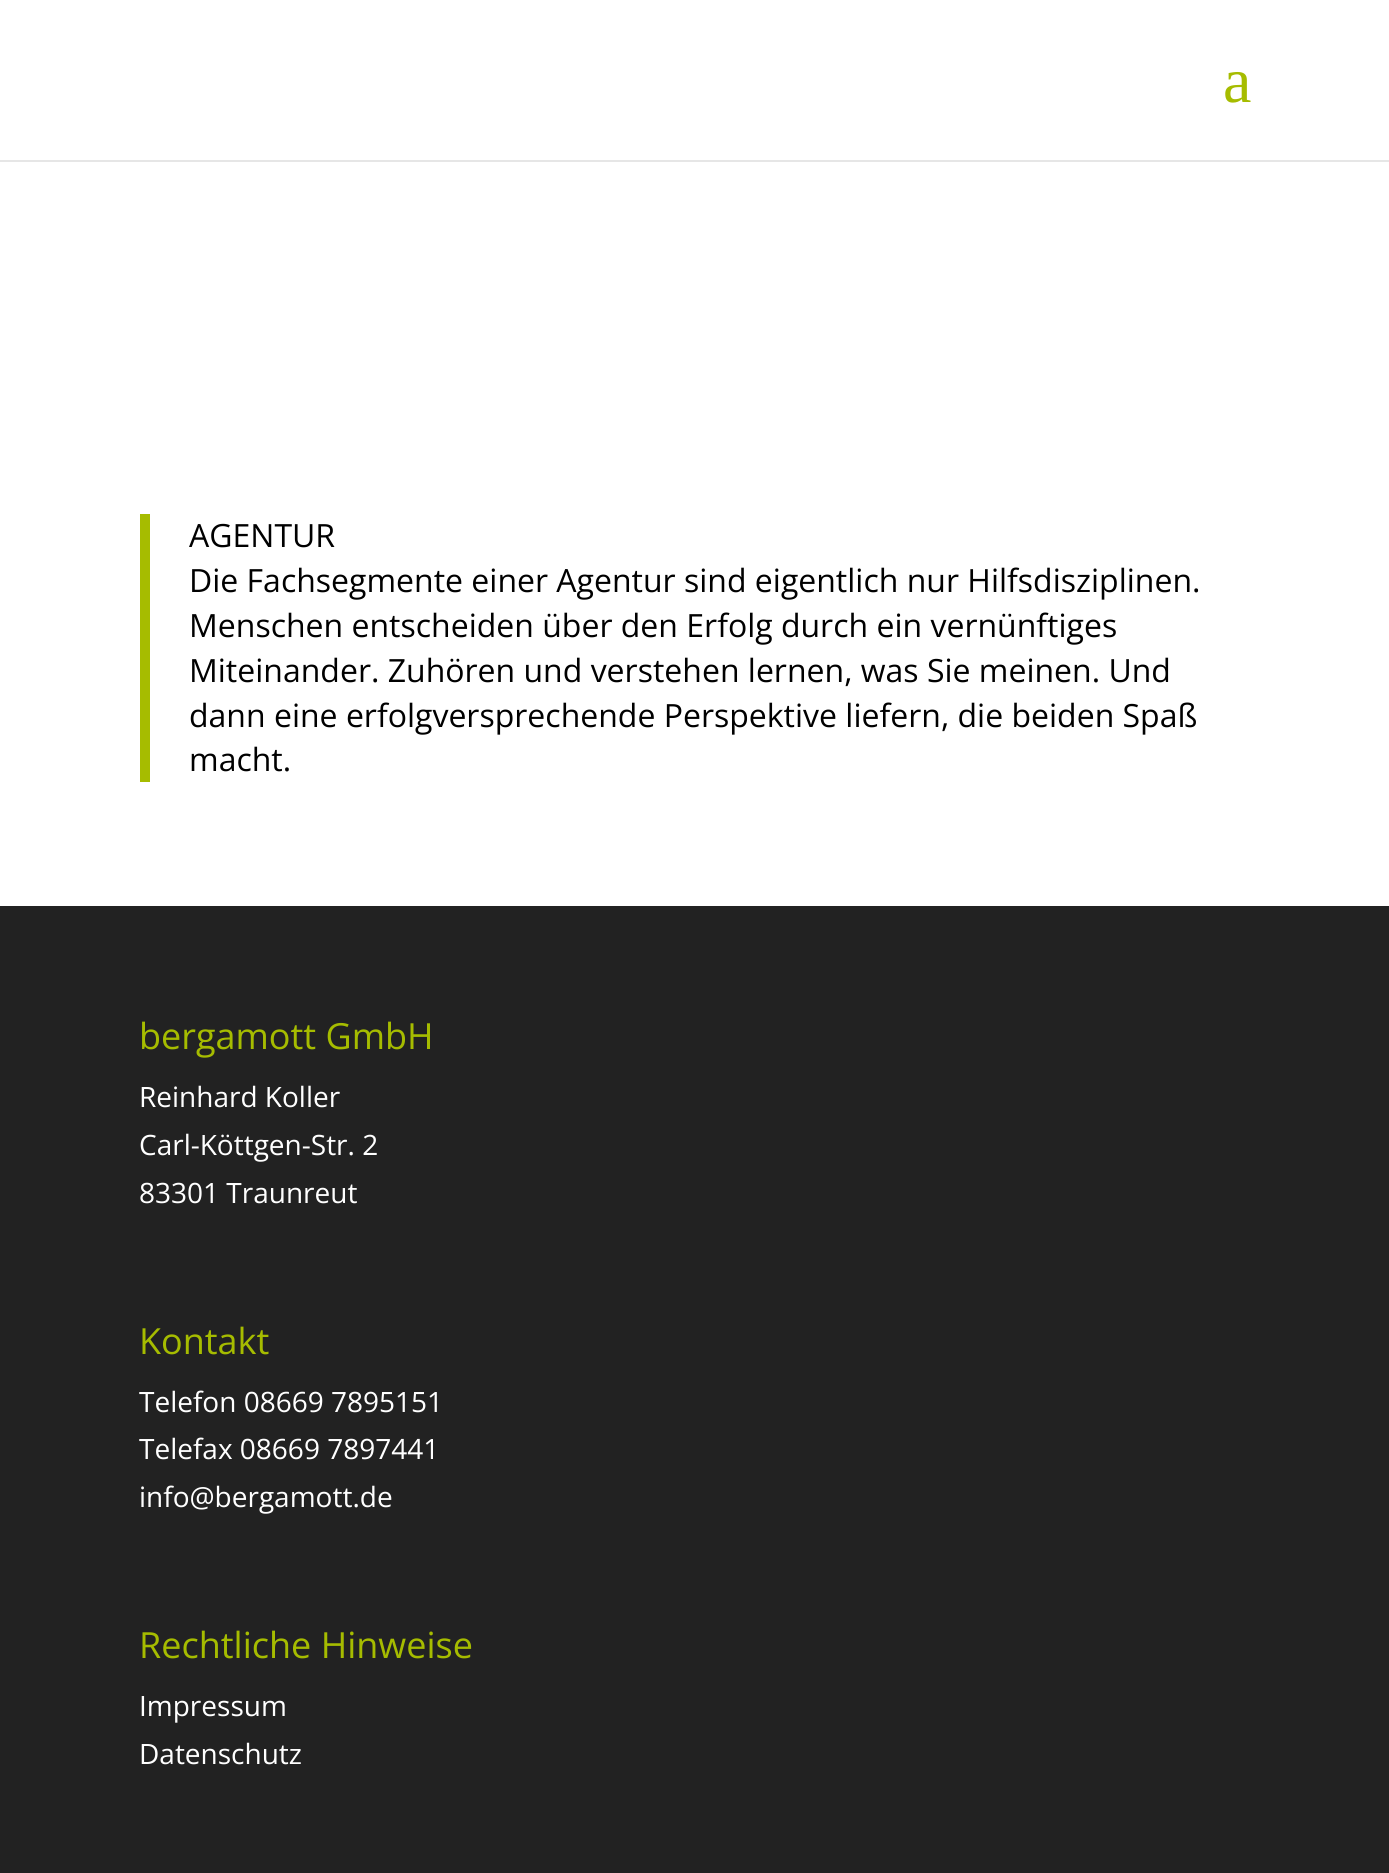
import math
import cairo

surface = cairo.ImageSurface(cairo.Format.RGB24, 1389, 1873)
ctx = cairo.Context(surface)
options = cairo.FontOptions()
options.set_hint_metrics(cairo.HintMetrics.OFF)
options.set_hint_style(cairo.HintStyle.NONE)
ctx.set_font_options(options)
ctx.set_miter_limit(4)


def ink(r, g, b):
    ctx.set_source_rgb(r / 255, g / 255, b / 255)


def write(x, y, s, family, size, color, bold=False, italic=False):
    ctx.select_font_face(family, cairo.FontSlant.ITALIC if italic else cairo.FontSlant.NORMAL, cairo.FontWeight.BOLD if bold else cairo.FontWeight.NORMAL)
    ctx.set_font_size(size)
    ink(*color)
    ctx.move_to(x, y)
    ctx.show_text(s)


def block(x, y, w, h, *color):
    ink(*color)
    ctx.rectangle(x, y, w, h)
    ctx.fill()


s1 = dict(family="Liberation Serif", size=64, color=(166, 188, 0))
s2 = dict(family="Open Sans", size=32, color=(0, 0, 0))
s3 = dict(family="Open Sans", size=36, color=(166, 188, 0))
s4 = dict(family="Open Sans", size=28, color=(255, 255, 255))

ink(255, 255, 255)
ctx.paint()
block(0, 160, 1389, 2, 230, 230, 230)
write(1223, 102, "a", **s1)
block(140, 514, 10, 268, 166, 188, 0)
write(189, 547, "AGENTUR", **s2)
write(189, 592, "Die Fachsegmente einer Agentur sind eigentlich nur Hilfsdisziplinen.", **s2)
write(189, 637, "Menschen entscheiden über den Erfolg durch ein vernünftiges", **s2)
write(189, 682, "Miteinander. Zuhören und verstehen lernen, was Sie meinen. Und", **s2)
write(189, 727, "dann eine erfolgversprechende Perspektive liefern, die beiden Spaß", **s2)
write(189, 771, "macht.", **s2)
block(0, 906, 1389, 967, 34, 34, 34)
write(139, 1049, "bergamott GmbH", **s3)
write(139, 1107, "Reinhard Koller", **s4)
write(139, 1155, "Carl-Köttgen-Str. 2", **s4)
write(139, 1203, "83301 Traunreut", **s4)
write(139, 1354, "Kontakt", **s3)
write(139, 1412, "Telefon 08669 7895151", **s4)
write(139, 1459, "Telefax 08669 7897441", **s4)
write(139, 1507, "info@bergamott.de", **s4)
write(139, 1658, "Rechtliche Hinweise", **s3)
write(139, 1716, "Impressum", **s4)
write(139, 1764, "Datenschutz", **s4)
surface.write_to_png("screenshot.png")
